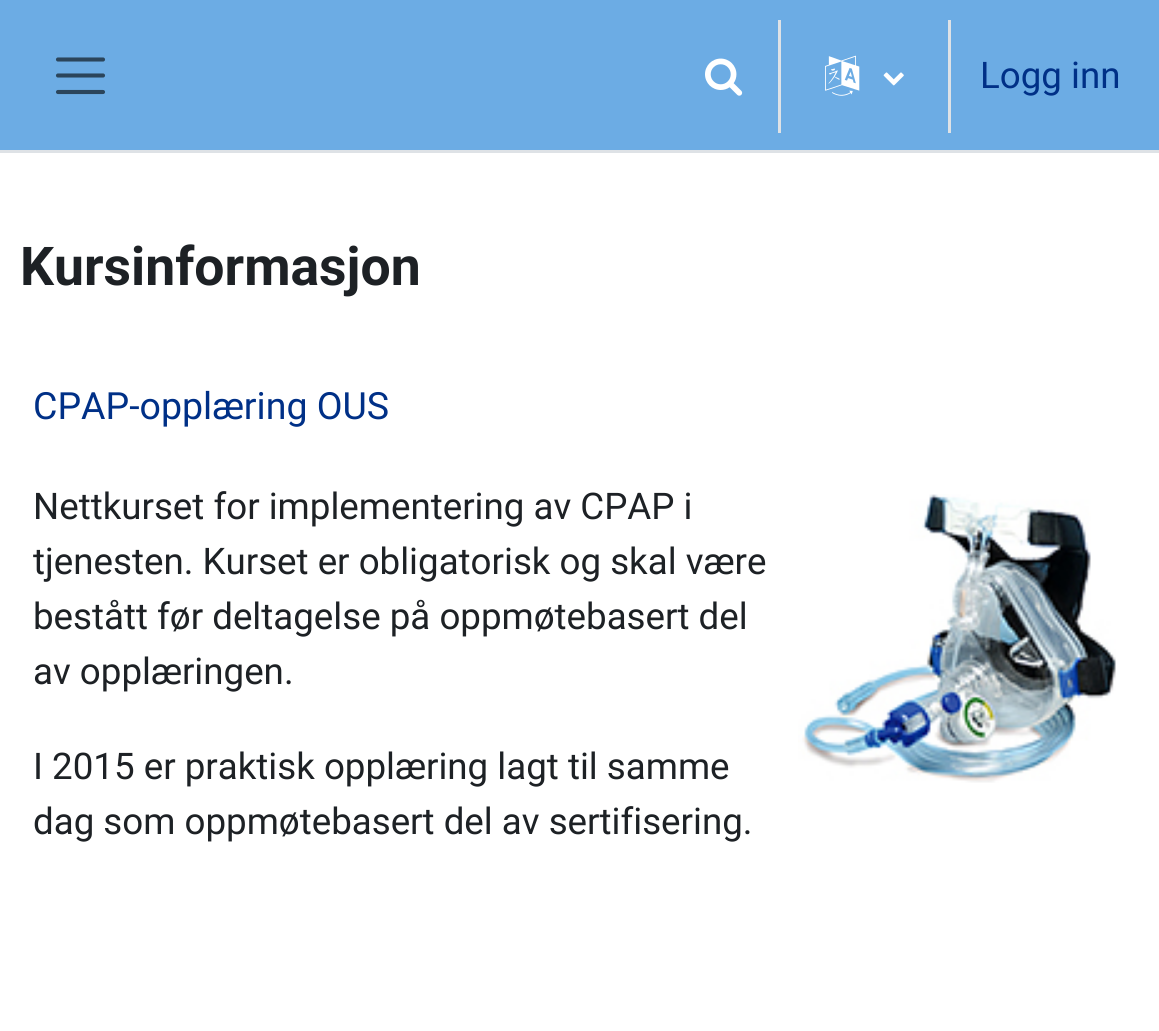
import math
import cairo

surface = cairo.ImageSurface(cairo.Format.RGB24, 1159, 1031)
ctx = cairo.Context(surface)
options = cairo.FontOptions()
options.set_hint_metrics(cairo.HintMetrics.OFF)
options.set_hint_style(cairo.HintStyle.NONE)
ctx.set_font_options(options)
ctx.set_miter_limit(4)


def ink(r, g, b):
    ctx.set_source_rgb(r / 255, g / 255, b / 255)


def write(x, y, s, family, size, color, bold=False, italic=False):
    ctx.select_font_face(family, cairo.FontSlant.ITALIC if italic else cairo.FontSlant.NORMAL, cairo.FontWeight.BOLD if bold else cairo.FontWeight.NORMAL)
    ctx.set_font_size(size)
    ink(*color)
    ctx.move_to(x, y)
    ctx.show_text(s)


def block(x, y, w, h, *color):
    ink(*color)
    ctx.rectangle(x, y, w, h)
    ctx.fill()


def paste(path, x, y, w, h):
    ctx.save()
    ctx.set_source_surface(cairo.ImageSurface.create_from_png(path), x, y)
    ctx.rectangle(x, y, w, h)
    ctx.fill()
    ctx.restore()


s1 = dict(family="Roboto", size=36.7, color=(0, 48, 135))
s2 = dict(family="Roboto", size=53.5, color=(29, 33, 37), bold=True)
s3 = dict(family="Roboto", size=37.5, color=(0, 48, 135))
s4 = dict(family="Roboto", size=36.7, color=(29, 33, 37))

ink(255, 255, 255)
ctx.paint()
block(0, 0, 1159, 150, 108, 172, 228)
block(0, 150, 1159, 3, 222, 226, 230)
ctx.new_path()
ctx.move_to(58, 59.5)
ctx.line_to(103, 59.5)
ctx.move_to(58, 75.5)
ctx.line_to(103, 75.5)
ctx.move_to(58, 92)
ctx.line_to(103, 92)
ink(43, 69, 91)
ctx.set_line_width(4.1)
ctx.set_line_cap(cairo.LineCap.ROUND)
ctx.stroke()
paste("pic1.png", 705, 58, 38, 38)
block(778, 20, 3, 113, 222, 226, 230)
paste("pic2.png", 825, 55, 35, 41)
paste("pic3.png", 883, 72, 21, 14)
block(948, 20, 3, 113, 222, 226, 230)
write(980, 88, "Logg inn", **s1)
write(20, 285, "Kursinformasjon", **s2)
write(33, 419, "CPAP-opplæring OUS", **s3)
write(33, 519, "Nettkurset for implementering av CPAP i", **s4)
paste("pic4.png", 798, 494, 318, 289)
ctx.save()
ctx.rectangle(33, 480, 1095, 410)
ctx.clip()
write(33, 574, "tjenesten. Kurset er obligatorisk og skal være", **s4)
ctx.restore()
write(33, 629, "bestått før deltagelse på oppmøtebasert del", **s4)
write(33, 684, "av opplæringen.", **s4)
write(33, 779, "I 2015 er praktisk opplæring lagt til samme", **s4)
write(33, 834, "dag som oppmøtebasert del av sertifisering.", **s4)
surface.write_to_png("screenshot.png")
